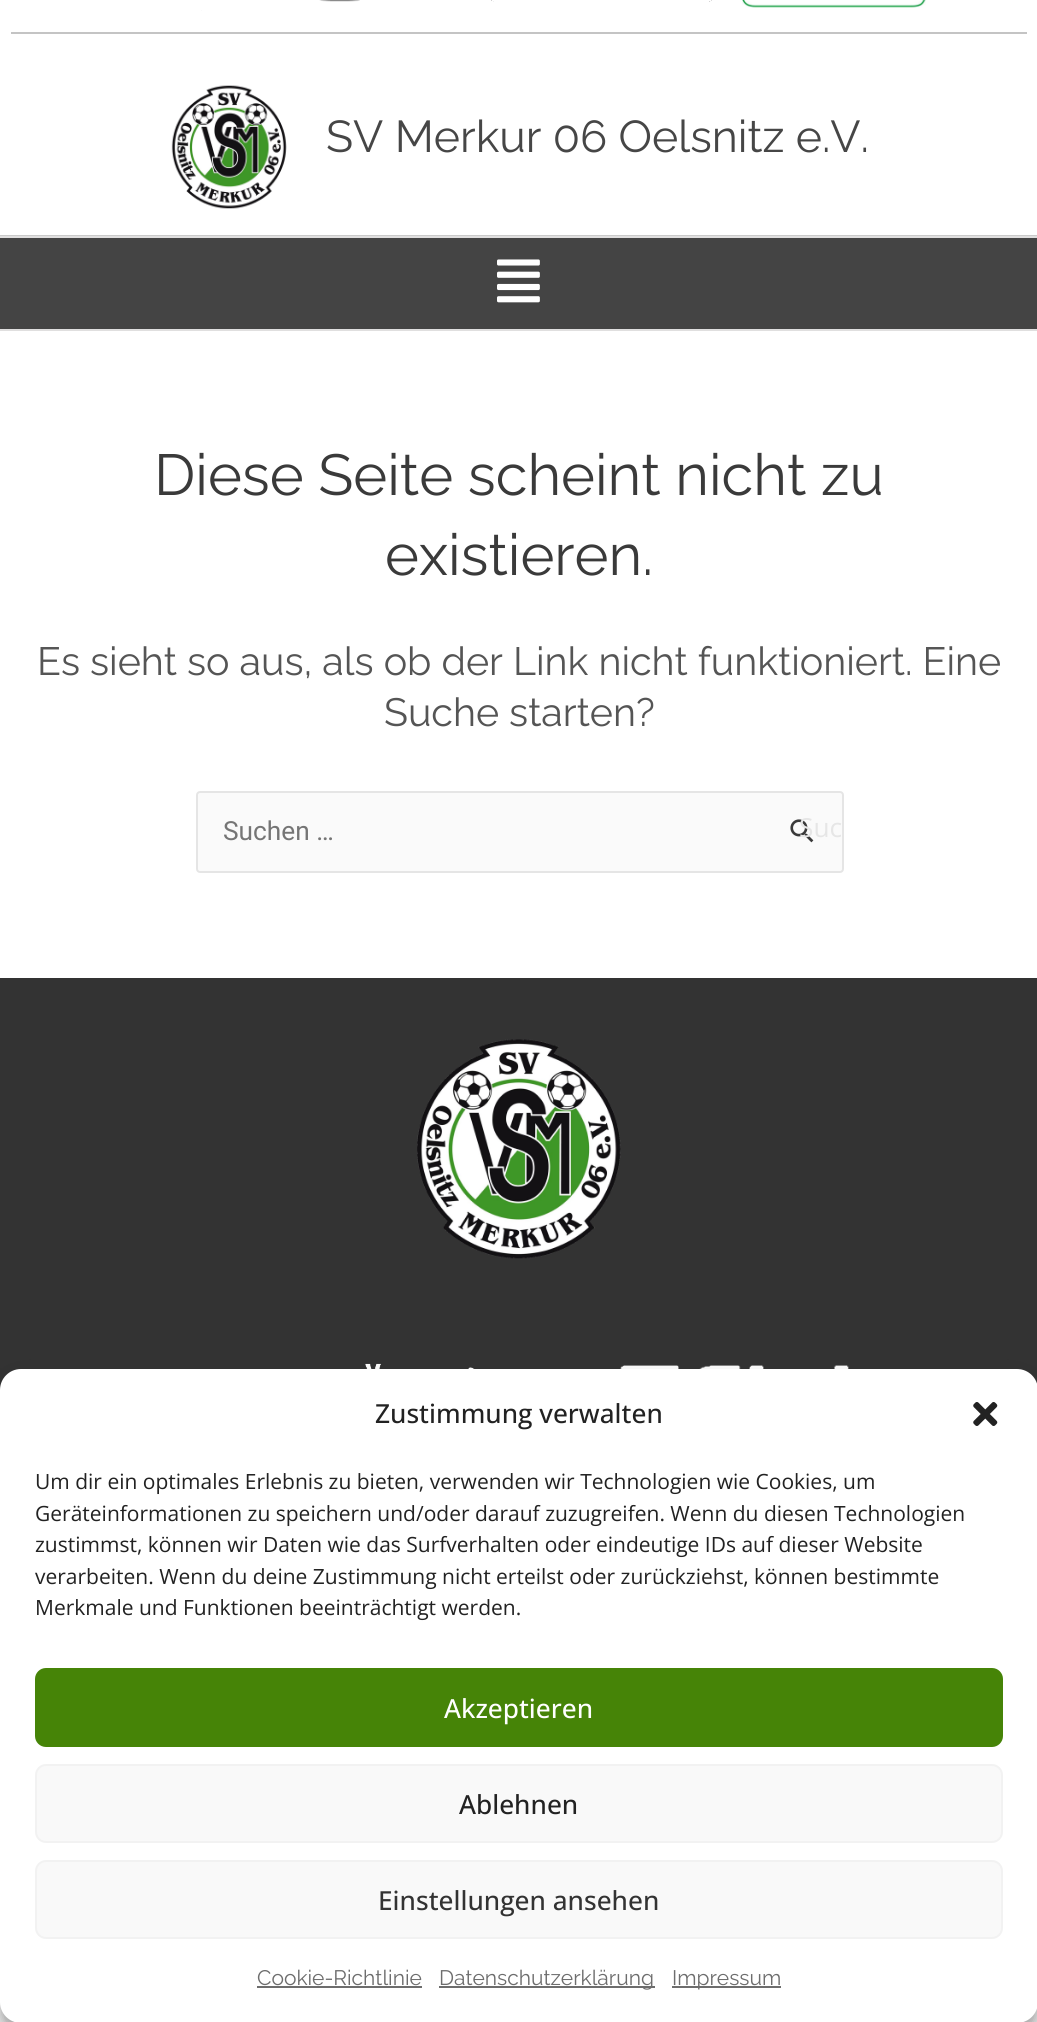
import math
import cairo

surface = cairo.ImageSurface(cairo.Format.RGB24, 1037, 2022)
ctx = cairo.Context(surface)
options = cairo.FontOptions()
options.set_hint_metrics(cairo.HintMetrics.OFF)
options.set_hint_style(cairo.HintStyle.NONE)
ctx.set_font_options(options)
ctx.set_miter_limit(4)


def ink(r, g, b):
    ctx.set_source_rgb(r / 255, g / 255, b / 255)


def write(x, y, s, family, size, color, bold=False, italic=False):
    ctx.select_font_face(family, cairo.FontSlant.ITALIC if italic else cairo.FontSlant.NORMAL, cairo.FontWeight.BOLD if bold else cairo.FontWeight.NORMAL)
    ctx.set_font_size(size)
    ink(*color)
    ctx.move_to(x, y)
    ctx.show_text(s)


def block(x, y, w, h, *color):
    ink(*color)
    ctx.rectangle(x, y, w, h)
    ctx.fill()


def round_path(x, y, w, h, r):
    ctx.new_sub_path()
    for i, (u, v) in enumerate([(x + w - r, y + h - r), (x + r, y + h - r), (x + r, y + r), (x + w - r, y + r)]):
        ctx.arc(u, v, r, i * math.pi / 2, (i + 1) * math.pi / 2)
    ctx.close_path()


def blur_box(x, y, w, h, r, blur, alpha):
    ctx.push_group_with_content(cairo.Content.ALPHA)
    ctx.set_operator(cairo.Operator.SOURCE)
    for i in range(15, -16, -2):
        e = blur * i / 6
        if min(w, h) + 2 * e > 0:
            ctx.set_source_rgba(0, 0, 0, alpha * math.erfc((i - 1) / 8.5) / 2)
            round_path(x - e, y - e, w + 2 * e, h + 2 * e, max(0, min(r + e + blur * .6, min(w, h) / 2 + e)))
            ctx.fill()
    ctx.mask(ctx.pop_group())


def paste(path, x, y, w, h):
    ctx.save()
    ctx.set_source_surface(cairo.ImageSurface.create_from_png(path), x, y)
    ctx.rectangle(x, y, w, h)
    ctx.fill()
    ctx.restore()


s1 = dict(family="Raleway", size=44.6, color=(70, 70, 70))
s2 = dict(family="Raleway", size=57.75, color=(58, 58, 58))
s3 = dict(family="Raleway", size=39.4, color=(85, 85, 85))
s4 = dict(family="Roboto", size=26.25, color=(117, 117, 117))
s5 = dict(family="Open Sans", size=26.25, color=(230, 230, 230))
s6 = dict(family="Open Sans Medium", size=26.25, color=(34, 34, 34))
s7 = dict(family="Open Sans", size=21, color=(34, 34, 34))
s8 = dict(family="Open Sans Medium", size=26.25, color=(255, 255, 255))
s9 = dict(family="Open Sans Medium", size=26.25, color=(51, 51, 51))
s10 = dict(family="Raleway", size=21, color=(109, 109, 109))

ink(255, 255, 255)
ctx.paint()
block(0, 235, 1037, 1, 202, 202, 202)
block(11, 32, 1016, 2, 196, 196, 196)
paste("pic1.png", 319, 0, 41, 2)
paste("pic2.png", 491, 0, 221, 2)
paste("pic3.png", 742, 0, 184, 8)
block(201, 10, 1, 1, 250, 250, 251)
paste("pic4.png", 171, 85, 116, 124)
write(326, 152, "SV Merkur 06 Oelsnitz e.V.", **s1)
block(0, 238, 1037, 91, 68, 68, 68)
block(0, 236, 1037, 2, 224, 223, 223)
block(0, 329, 1037, 2, 224, 223, 223)
paste("pic5.png", 497, 259, 43, 44)
write(154, 495, "Diese Seite scheint nicht zu", **s2)
write(385, 575, "existieren.", **s2)
write(37, 675, "Es sieht so aus, als ob der Link nicht funktioniert. Eine", **s3)
write(384, 726, "Suche starten?", **s3)
ink(250, 250, 250)
round_path(197, 792, 646, 80, 3)
ctx.fill_preserve()
ink(229, 229, 229)
ctx.stroke()
write(223, 840, "Suchen …", **s4)
paste("pic6.png", 790, 819, 24, 24)
write(799, 837, "Suc", **s5)
block(0, 978, 1037, 412, 51, 51, 51)
paste("pic7.png", 417, 1039, 204, 220)
paste("pic8.png", 365, 1363, 16, 6)
paste("pic9.png", 468, 1367, 7, 2)
paste("pic10.png", 620, 1365, 229, 4)
ink(0, 0, 0)
blur_box(0, 1379, 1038, 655, 21, 5, 0.23)
blur_box(0, 1386, 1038, 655, 21, 17.5, 0.19)
ink(255, 255, 255)
round_path(0, 1369, 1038, 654, 21)
ctx.fill()
write(375, 1423, "Zustimmung verwalten", **s6)
paste("pic11.png", 973, 1402, 25, 24)
write(35, 1489, "Um dir ein optimales Erlebnis zu bieten, verwenden wir Technologien wie Cookies, um", **s7)
write(35, 1521, "Geräteinformationen zu speichern und/oder darauf zuzugreifen. Wenn du diesen Technologien", **s7)
write(35, 1552, "zustimmst, können wir Daten wie das Surfverhalten oder eindeutige IDs auf dieser Website", **s7)
write(35, 1584, "verarbeiten. Wenn du deine Zustimmung nicht erteilst oder zurückziehst, können bestimmte", **s7)
write(35, 1615, "Merkmale und Funktionen beeinträchtigt werden.", **s7)
ink(70, 132, 7)
round_path(36, 1669, 966, 77, 10)
ctx.fill_preserve()
ctx.stroke()
write(444, 1718, "Akzeptieren", **s8)
ink(249, 249, 249)
round_path(36, 1765, 966, 77, 10)
ctx.fill_preserve()
ink(242, 242, 242)
ctx.stroke()
write(459, 1814, "Ablehnen", **s6)
ink(249, 249, 249)
round_path(36, 1861, 966, 77, 10)
ctx.fill_preserve()
ink(242, 242, 242)
ctx.stroke()
write(378, 1910, "Einstellungen ansehen", **s9)
write(257, 1985, "Cookie-Richtlinie", **s10)
block(257, 1986, 165, 2, 109, 109, 109)
block(439, 1986, 216, 2, 109, 109, 109)
write(439, 1985, "Datenschutzerklärung", **s10)
block(672, 1986, 109, 2, 109, 109, 109)
write(672, 1985, "Impressum", **s10)
surface.write_to_png("screenshot.png")
